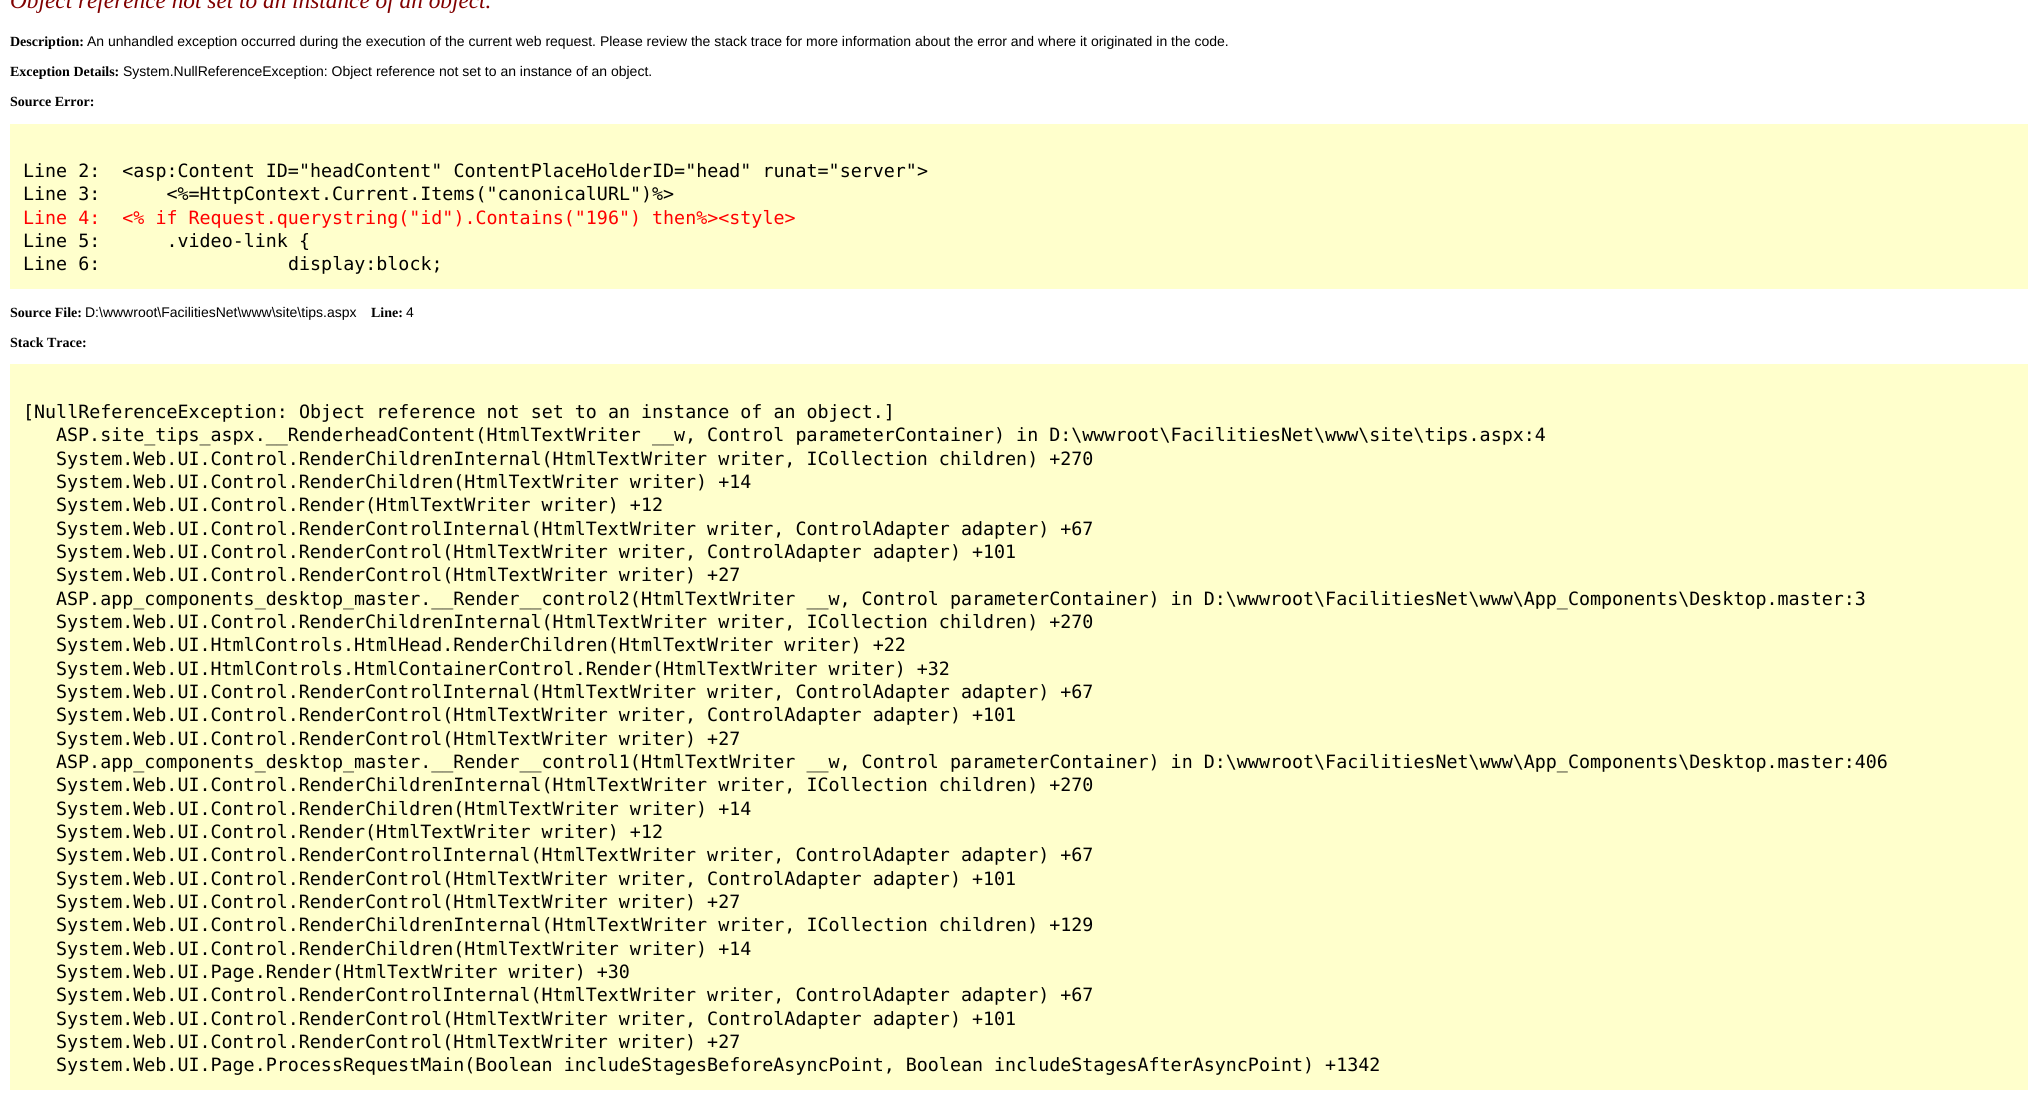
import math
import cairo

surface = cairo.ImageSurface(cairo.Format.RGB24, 2037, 1102)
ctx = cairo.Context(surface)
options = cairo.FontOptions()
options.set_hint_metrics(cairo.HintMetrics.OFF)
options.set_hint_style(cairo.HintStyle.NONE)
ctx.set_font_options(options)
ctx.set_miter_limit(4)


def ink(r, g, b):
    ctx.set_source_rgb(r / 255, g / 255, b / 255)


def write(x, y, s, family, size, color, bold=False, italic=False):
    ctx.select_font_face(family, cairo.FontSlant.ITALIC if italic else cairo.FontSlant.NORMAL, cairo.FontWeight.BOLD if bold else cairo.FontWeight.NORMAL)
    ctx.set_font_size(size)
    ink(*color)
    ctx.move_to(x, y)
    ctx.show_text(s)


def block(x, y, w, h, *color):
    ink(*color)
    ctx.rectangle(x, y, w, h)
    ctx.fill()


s1 = dict(family="Liberation Serif", size=23.3, color=(128, 0, 0), italic=True)
s2 = dict(family="Liberation Serif", size=14, color=(0, 0, 0), bold=True)
s3 = dict(family="Liberation Sans", size=14, color=(0, 0, 0))
s4 = dict(family="DejaVu Sans Mono", size=18.33, color=(0, 0, 0))
s5 = dict(family="DejaVu Sans Mono", size=18.33, color=(255, 0, 0))

ink(255, 255, 255)
ctx.paint()
write(10, 8, "Object reference not set to an instance of an object.", **s1)
write(10, 46, "Description:", **s2)
write(87, 46, "An unhandled exception occurred during the execution of the current web request. Please review the stack trace for more information about the error and where it originated in the code.", **s3)
write(10, 76, "Exception Details:", **s2)
write(123, 76, "System.NullReferenceException: Object reference not set to an instance of an object.", **s3)
write(10, 106, "Source Error:", **s2)
block(10, 124, 2018, 165, 255, 255, 204)
write(23, 177, "Line 2:  <asp:Content ID=\"headContent\" ContentPlaceHolderID=\"head\" runat=\"server\">", **s4)
write(23, 200, "Line 3:      <%=HttpContext.Current.Items(\"canonicalURL\")%>", **s4)
write(23, 224, "Line 4:  <% if Request.querystring(\"id\").Contains(\"196\") then%><style>", **s5)
write(23, 247, "Line 5:      .video-link {", **s4)
write(23, 270, "Line 6:", **s4)
write(288, 270, "display:block;", **s4)
write(10, 317, "Source File:", **s2)
write(85, 317, "D:\\wwwroot\\FacilitiesNet\\www\\site\\tips.aspx", **s3)
write(371, 317, "Line:", **s2)
write(406, 317, "4", **s3)
write(10, 347, "Stack Trace:", **s2)
block(10, 364, 2018, 726, 255, 255, 204)
write(23, 418, "[NullReferenceException: Object reference not set to an instance of an object.]", **s4)
write(56, 441, "ASP.site_tips_aspx.__RenderheadContent(HtmlTextWriter __w, Control parameterContainer) in D:\\wwwroot\\FacilitiesNet\\www\\site\\tips.aspx:4", **s4)
write(56, 465, "System.Web.UI.Control.RenderChildrenInternal(HtmlTextWriter writer, ICollection children) +270", **s4)
write(56, 488, "System.Web.UI.Control.RenderChildren(HtmlTextWriter writer) +14", **s4)
write(56, 511, "System.Web.UI.Control.Render(HtmlTextWriter writer) +12", **s4)
write(56, 535, "System.Web.UI.Control.RenderControlInternal(HtmlTextWriter writer, ControlAdapter adapter) +67", **s4)
write(56, 558, "System.Web.UI.Control.RenderControl(HtmlTextWriter writer, ControlAdapter adapter) +101", **s4)
write(56, 581, "System.Web.UI.Control.RenderControl(HtmlTextWriter writer) +27", **s4)
write(56, 605, "ASP.app_components_desktop_master.__Render__control2(HtmlTextWriter __w, Control parameterContainer) in D:\\wwwroot\\FacilitiesNet\\www\\App_Components\\Desktop.master:3", **s4)
write(56, 628, "System.Web.UI.Control.RenderChildrenInternal(HtmlTextWriter writer, ICollection children) +270", **s4)
write(56, 651, "System.Web.UI.HtmlControls.HtmlHead.RenderChildren(HtmlTextWriter writer) +22", **s4)
write(56, 675, "System.Web.UI.HtmlControls.HtmlContainerControl.Render(HtmlTextWriter writer) +32", **s4)
write(56, 698, "System.Web.UI.Control.RenderControlInternal(HtmlTextWriter writer, ControlAdapter adapter) +67", **s4)
write(56, 721, "System.Web.UI.Control.RenderControl(HtmlTextWriter writer, ControlAdapter adapter) +101", **s4)
write(56, 745, "System.Web.UI.Control.RenderControl(HtmlTextWriter writer) +27", **s4)
write(56, 768, "ASP.app_components_desktop_master.__Render__control1(HtmlTextWriter __w, Control parameterContainer) in D:\\wwwroot\\FacilitiesNet\\www\\App_Components\\Desktop.master:406", **s4)
write(56, 791, "System.Web.UI.Control.RenderChildrenInternal(HtmlTextWriter writer, ICollection children) +270", **s4)
write(56, 815, "System.Web.UI.Control.RenderChildren(HtmlTextWriter writer) +14", **s4)
write(56, 838, "System.Web.UI.Control.Render(HtmlTextWriter writer) +12", **s4)
write(56, 861, "System.Web.UI.Control.RenderControlInternal(HtmlTextWriter writer, ControlAdapter adapter) +67", **s4)
write(56, 885, "System.Web.UI.Control.RenderControl(HtmlTextWriter writer, ControlAdapter adapter) +101", **s4)
write(56, 908, "System.Web.UI.Control.RenderControl(HtmlTextWriter writer) +27", **s4)
write(56, 931, "System.Web.UI.Control.RenderChildrenInternal(HtmlTextWriter writer, ICollection children) +129", **s4)
write(56, 955, "System.Web.UI.Control.RenderChildren(HtmlTextWriter writer) +14", **s4)
write(56, 978, "System.Web.UI.Page.Render(HtmlTextWriter writer) +30", **s4)
write(56, 1001, "System.Web.UI.Control.RenderControlInternal(HtmlTextWriter writer, ControlAdapter adapter) +67", **s4)
write(56, 1025, "System.Web.UI.Control.RenderControl(HtmlTextWriter writer, ControlAdapter adapter) +101", **s4)
write(56, 1048, "System.Web.UI.Control.RenderControl(HtmlTextWriter writer) +27", **s4)
write(56, 1071, "System.Web.UI.Page.ProcessRequestMain(Boolean includeStagesBeforeAsyncPoint, Boolean includeStagesAfterAsyncPoint) +1342", **s4)
surface.write_to_png("screenshot.png")
